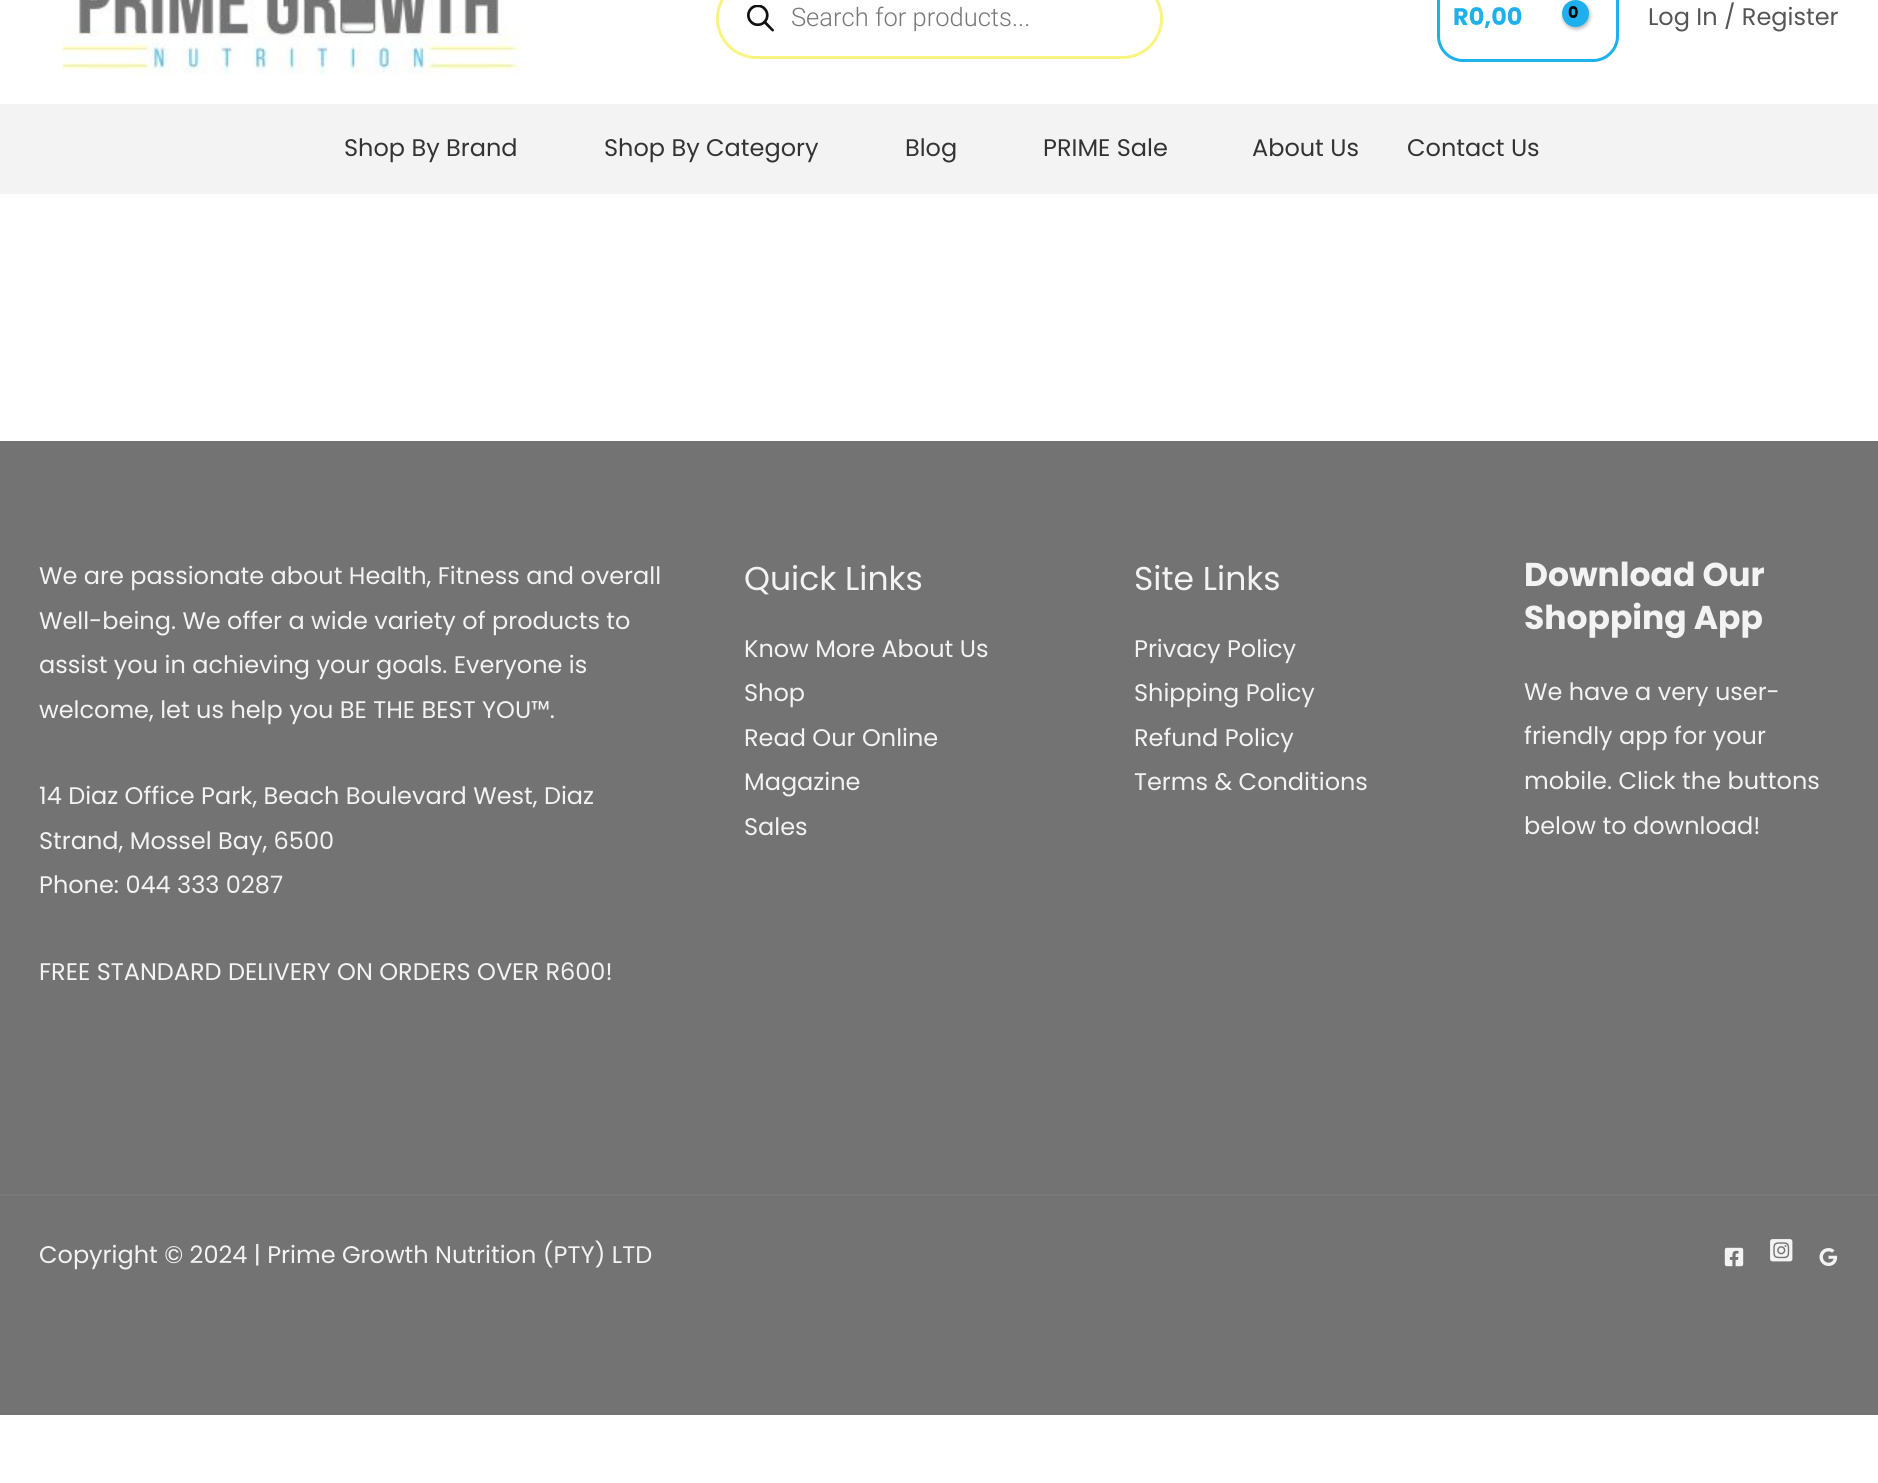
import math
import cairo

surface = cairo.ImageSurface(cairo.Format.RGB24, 1878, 1483)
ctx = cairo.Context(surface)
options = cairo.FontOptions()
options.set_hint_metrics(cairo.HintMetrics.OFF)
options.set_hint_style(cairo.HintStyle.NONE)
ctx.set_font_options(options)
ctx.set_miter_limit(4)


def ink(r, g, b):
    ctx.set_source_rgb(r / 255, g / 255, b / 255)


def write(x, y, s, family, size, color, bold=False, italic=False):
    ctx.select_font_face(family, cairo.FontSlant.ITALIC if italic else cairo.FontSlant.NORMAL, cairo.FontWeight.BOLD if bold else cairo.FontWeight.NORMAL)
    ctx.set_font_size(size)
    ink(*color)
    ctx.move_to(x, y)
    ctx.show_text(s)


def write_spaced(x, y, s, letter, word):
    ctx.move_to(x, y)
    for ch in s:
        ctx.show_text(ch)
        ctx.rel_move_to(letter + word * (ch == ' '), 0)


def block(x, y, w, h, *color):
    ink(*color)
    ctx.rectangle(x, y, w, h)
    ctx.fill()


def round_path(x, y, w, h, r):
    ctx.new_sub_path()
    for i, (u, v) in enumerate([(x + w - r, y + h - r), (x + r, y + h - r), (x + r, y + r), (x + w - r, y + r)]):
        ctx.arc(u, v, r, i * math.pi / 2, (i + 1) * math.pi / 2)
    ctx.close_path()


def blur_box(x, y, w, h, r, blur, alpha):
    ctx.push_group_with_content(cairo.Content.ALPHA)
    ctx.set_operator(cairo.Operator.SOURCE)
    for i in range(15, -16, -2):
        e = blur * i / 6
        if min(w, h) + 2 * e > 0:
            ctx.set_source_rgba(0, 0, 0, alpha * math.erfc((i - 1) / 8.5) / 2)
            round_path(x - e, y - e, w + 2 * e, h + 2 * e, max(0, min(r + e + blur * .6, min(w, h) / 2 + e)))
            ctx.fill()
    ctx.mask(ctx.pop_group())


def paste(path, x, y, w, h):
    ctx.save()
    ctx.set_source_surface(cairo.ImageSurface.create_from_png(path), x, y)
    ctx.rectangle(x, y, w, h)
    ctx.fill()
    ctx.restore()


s1 = dict(family="Roboto Light", size=25.5, color=(119, 119, 119))
s2 = dict(family="Poppins", size=24, color=(29, 176, 237), bold=True)
s3 = dict(family="Poppins", size=24, color=(86, 84, 84))
s4 = dict(family="Poppins", size=24, color=(51, 51, 51))
s5 = dict(family="Poppins", size=24, color=(243, 243, 243))
s6 = dict(family="Poppins", size=33, color=(243, 243, 243))
s7 = dict(family="Poppins", size=33, color=(243, 243, 243), bold=True)

ink(255, 255, 255)
ctx.paint()
paste("pic1.png", 61, 0, 459, 75)
round_path(717.5, -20.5, 444, 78, 39)
ink(249, 244, 127)
ctx.set_line_width(3)
ctx.stroke()
paste("pic2.png", 747, 5, 27, 27)
write(791, 26, "Search for products...", **s1)
round_path(1438.5, -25.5, 179, 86, 24.5)
ink(29, 176, 237)
ctx.stroke()
write(1453, 25, "R0,00", **s2)
ink(0, 0, 0)
blur_box(1563, 2, 27, 27, 13.5, 2, 0.3)
ink(29, 176, 237)
ctx.arc(1575.5, 13.5, 13.5, 0, 2 * math.pi)
ctx.fill()
ctx.set_font_size(16)
ink(0, 0, 0)
write_spaced(1568, 18, "0", -1, 0)
write(1648, 25, "Log In / Register", **s3)
block(0, 104, 1878, 90, 243, 243, 243)
write(344, 156, "Shop By Brand", **s4)
write(604, 156, "Shop By Category", **s4)
write(905, 156, "Blog", **s4)
write(1043, 156, "PRIME Sale", **s4)
write(1252, 156, "About Us", **s4)
write(1407, 156, "Contact Us", **s4)
block(0, 441, 1878, 753, 115, 115, 116)
write(39, 584, "We are passionate about Health, Fitness and overall", **s5)
write(39, 629, "Well-being. We offer a wide variety of products to", **s5)
write(39, 673, "assist you in achieving your goals. Everyone is", **s5)
write(39, 718, "welcome, let us help you BE THE BEST YOU™.", **s5)
write(39, 804, "14 Diaz Office Park, Beach Boulevard West, Diaz", **s5)
write(39, 849, "Strand, Mossel Bay, 6500", **s5)
write(39, 893, "Phone: 044 333 0287", **s5)
write(39, 980, "FREE STANDARD DELIVERY ON ORDERS OVER R600!", **s5)
write(744, 590, "Quick Links", **s6)
write(744, 657, "Know More About Us", **s5)
write(744, 701, "Shop", **s5)
write(744, 746, "Read Our Online", **s5)
write(744, 790, "Magazine", **s5)
write(744, 835, "Sales", **s5)
write(1134, 590, "Site Links", **s6)
write(1134, 657, "Privacy Policy", **s5)
write(1134, 701, "Shipping Policy", **s5)
write(1134, 746, "Refund Policy", **s5)
write(1134, 790, "Terms & Conditions", **s5)
write(1524, 586, "Download Our", **s7)
write(1524, 629, "Shopping App", **s7)
write(1524, 700, "We have a very user-", **s5)
write(1524, 744, "friendly app for your", **s5)
write(1524, 789, "mobile. Click the buttons", **s5)
write(1524, 834, "below to download!", **s5)
block(0, 1196, 1878, 219, 115, 115, 116)
block(0, 1194, 1878, 2, 120, 120, 120)
write(39, 1263, "Copyright © 2024 | Prime Growth Nutrition (PTY) LTD", **s5)
paste("pic3.png", 1724, 1247, 20, 20)
paste("pic4.png", 1770, 1239, 23, 23)
paste("pic5.png", 1819, 1248, 19, 18)
surface.write_to_png("screenshot.png")
